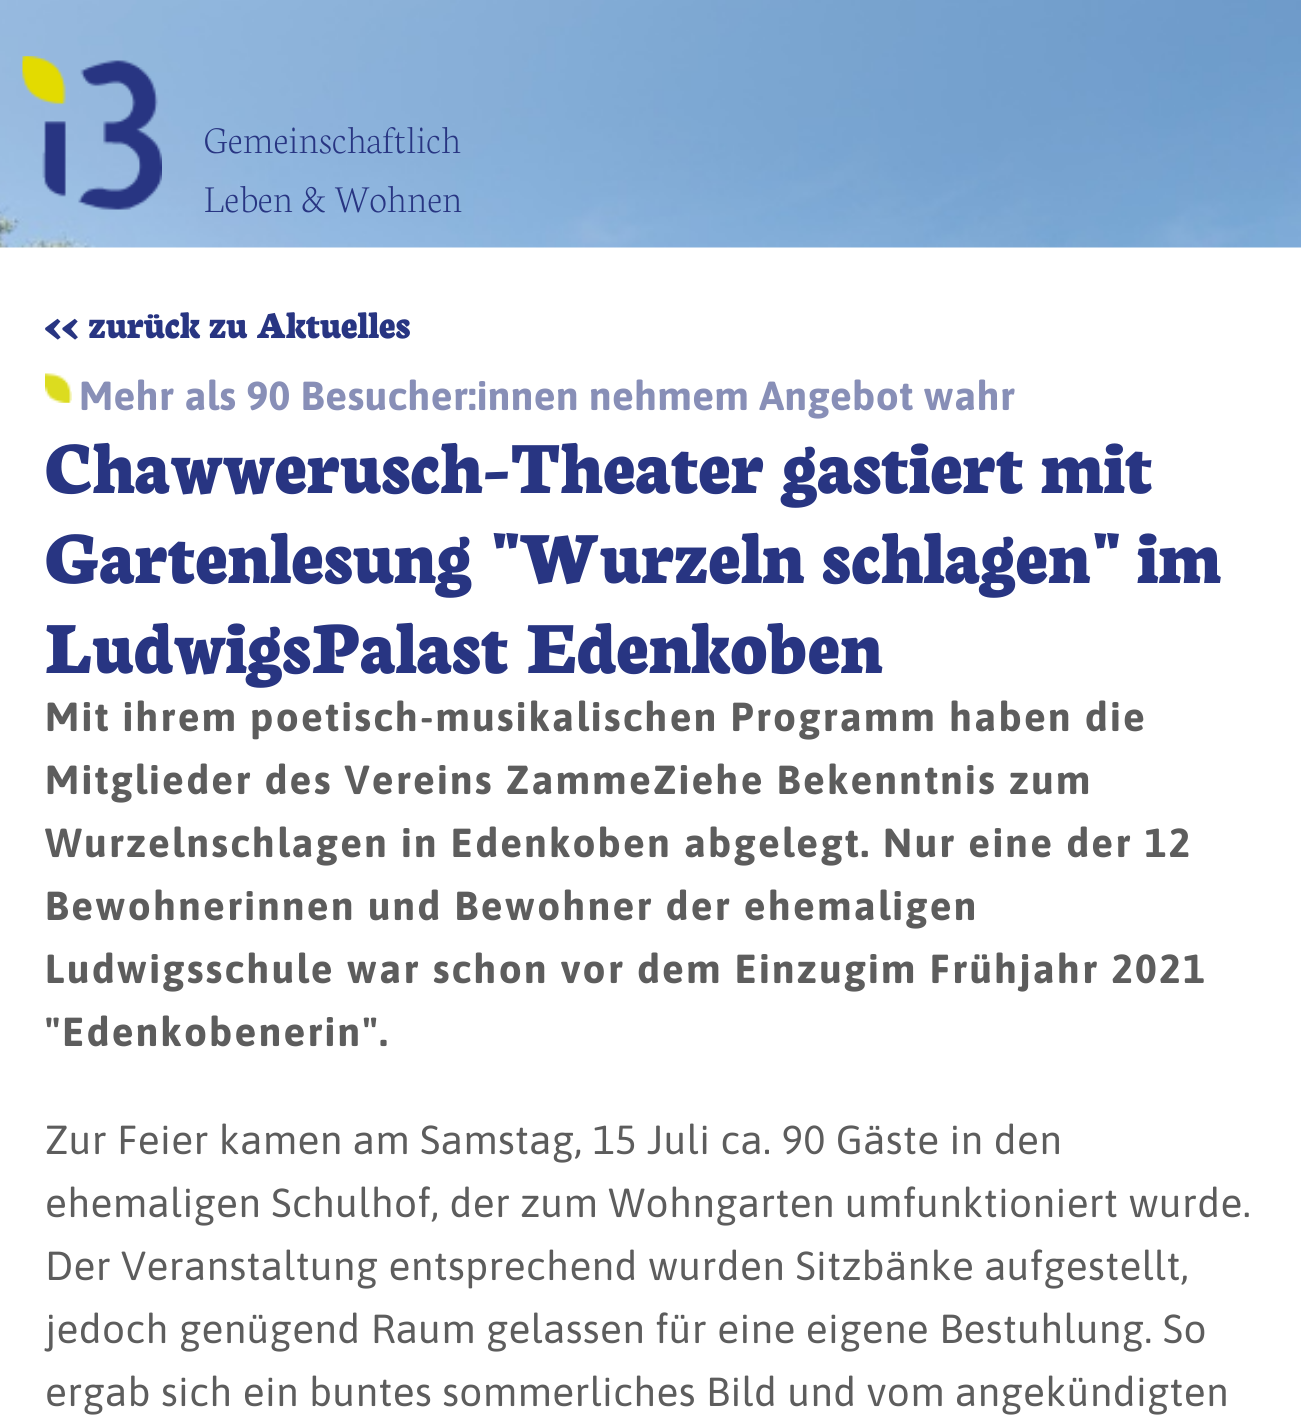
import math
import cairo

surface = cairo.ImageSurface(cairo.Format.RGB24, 1301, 1416)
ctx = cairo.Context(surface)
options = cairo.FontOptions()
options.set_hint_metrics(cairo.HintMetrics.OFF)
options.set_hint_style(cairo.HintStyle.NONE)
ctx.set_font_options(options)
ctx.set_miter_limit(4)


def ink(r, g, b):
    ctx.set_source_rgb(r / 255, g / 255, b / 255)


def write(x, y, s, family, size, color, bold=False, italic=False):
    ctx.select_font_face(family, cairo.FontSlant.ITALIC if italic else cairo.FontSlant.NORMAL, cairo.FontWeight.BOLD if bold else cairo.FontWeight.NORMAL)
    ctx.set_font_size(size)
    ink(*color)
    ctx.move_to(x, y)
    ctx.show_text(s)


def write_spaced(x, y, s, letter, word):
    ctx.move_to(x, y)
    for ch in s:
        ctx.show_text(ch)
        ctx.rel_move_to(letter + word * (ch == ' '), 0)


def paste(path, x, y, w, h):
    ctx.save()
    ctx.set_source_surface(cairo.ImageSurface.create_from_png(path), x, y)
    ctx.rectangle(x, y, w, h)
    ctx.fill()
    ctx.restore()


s1 = dict(family="Neuton Light", size=40.5, color=(40, 53, 130))
s2 = dict(family="Neuton ExtraBold", size=40.5, color=(40, 53, 130))

ink(255, 255, 255)
ctx.paint()
paste("pic1.png", 0, 0, 1301, 248)
paste("pic2.png", 22, 56, 140, 154)
write(204, 153, "Gemeinschaftlich", **s1)
write(204, 212, "Leben & Wohnen", **s1)
write(45, 338, "<< zurück zu Aktuelles", **s2)
paste("pic3.png", 45, 373, 27, 30)
ctx.select_font_face("Asap", cairo.FontSlant.NORMAL, cairo.FontWeight.BOLD)
ink(136, 143, 183)
write_spaced(79, 410, "Mehr als 90 Besucher:innen nehmem Angebot wahr", 0.4, 0)
ctx.select_font_face("Neuton ExtraBold")
ctx.set_font_size(78.75)
ink(40, 53, 130)
write_spaced(45, 493, "Chawwerusch-Theater gastiert mit", 0.4, 0)
write_spaced(45, 583, "Gartenlesung \"Wurzeln schlagen\" im", 0.4, 0)
write_spaced(45, 673, "LudwigsPalast Edenkoben", 0.4, 0)
ctx.select_font_face("Asap", cairo.FontSlant.NORMAL, cairo.FontWeight.BOLD)
ctx.set_font_size(40.5)
ink(93, 93, 93)
write_spaced(45, 731, "Mit ihrem poetisch-musikalischen Programm haben die", 2.25, 0)
write_spaced(45, 794, "Mitglieder des Vereins ZammeZiehe Bekenntnis zum", 2.25, 0)
write_spaced(45, 857, "Wurzelnschlagen in Edenkoben abgelegt. Nur eine der 12", 2.25, 0)
write_spaced(45, 920, "Bewohnerinnen und Bewohner der ehemaligen", 2.25, 0)
write_spaced(45, 983, "Ludwigsschule war schon vor dem Einzugim Frühjahr 2021", 2.25, 0)
write_spaced(45, 1046, "\"Edenkobenerin\".", 2.25, 0)
ctx.select_font_face("Asap")
write_spaced(45, 1154, "Zur Feier kamen am Samstag, 15 Juli ca. 90 Gäste in den", 0.4, 0)
write_spaced(45, 1217, "ehemaligen Schulhof, der zum Wohngarten umfunktioniert wurde.", 0.4, 0)
write_spaced(45, 1280, "Der Veranstaltung entsprechend wurden Sitzbänke aufgestellt,", 0.4, 0)
write_spaced(45, 1343, "jedoch genügend Raum gelassen für eine eigene Bestuhlung. So", 0.4, 0)
write_spaced(45, 1406, "ergab sich ein buntes sommerliches Bild und vom angekündigten", 0.4, 0)
surface.write_to_png("screenshot.png")
